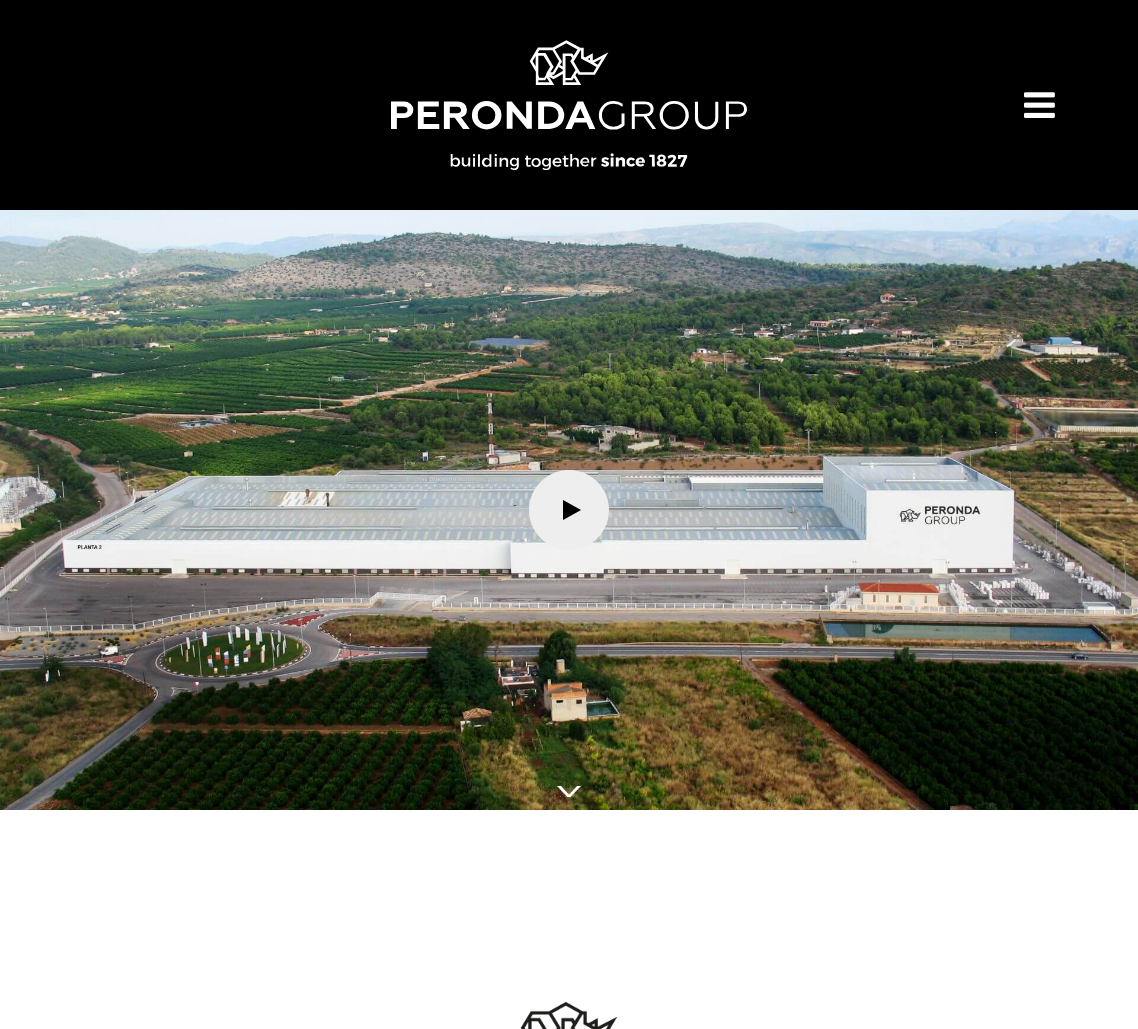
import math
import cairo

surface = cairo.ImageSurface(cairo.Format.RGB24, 1138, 1029)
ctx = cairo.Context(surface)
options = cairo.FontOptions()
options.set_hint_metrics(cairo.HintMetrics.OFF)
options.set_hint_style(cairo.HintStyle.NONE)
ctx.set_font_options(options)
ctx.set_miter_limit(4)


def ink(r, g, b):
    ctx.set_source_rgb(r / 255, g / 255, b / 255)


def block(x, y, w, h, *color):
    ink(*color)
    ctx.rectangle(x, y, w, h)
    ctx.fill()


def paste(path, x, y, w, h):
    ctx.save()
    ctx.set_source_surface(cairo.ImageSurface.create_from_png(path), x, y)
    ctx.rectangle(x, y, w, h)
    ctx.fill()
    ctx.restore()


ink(255, 255, 255)
ctx.paint()
block(0, 0, 1138, 210, 0, 0, 0)
paste("pic1.png", 391, 40, 356, 130)
paste("pic2.png", 1024, 92, 31, 26)
paste("pic3.png", 0, 210, 1138, 600)
ink(238, 238, 238)
ctx.arc(569, 510, 40, 0, 2 * math.pi)
ctx.fill()
ink(0, 0, 0)
ctx.new_path()
ctx.move_to(563, 520)
ctx.line_to(563, 500)
ctx.line_to(581, 510)
ctx.close_path()
ctx.fill()
paste("pic4.png", 557, 786, 24, 11)
paste("pic5.png", 520, 1002, 98, 27)
surface.write_to_png("screenshot.png")
